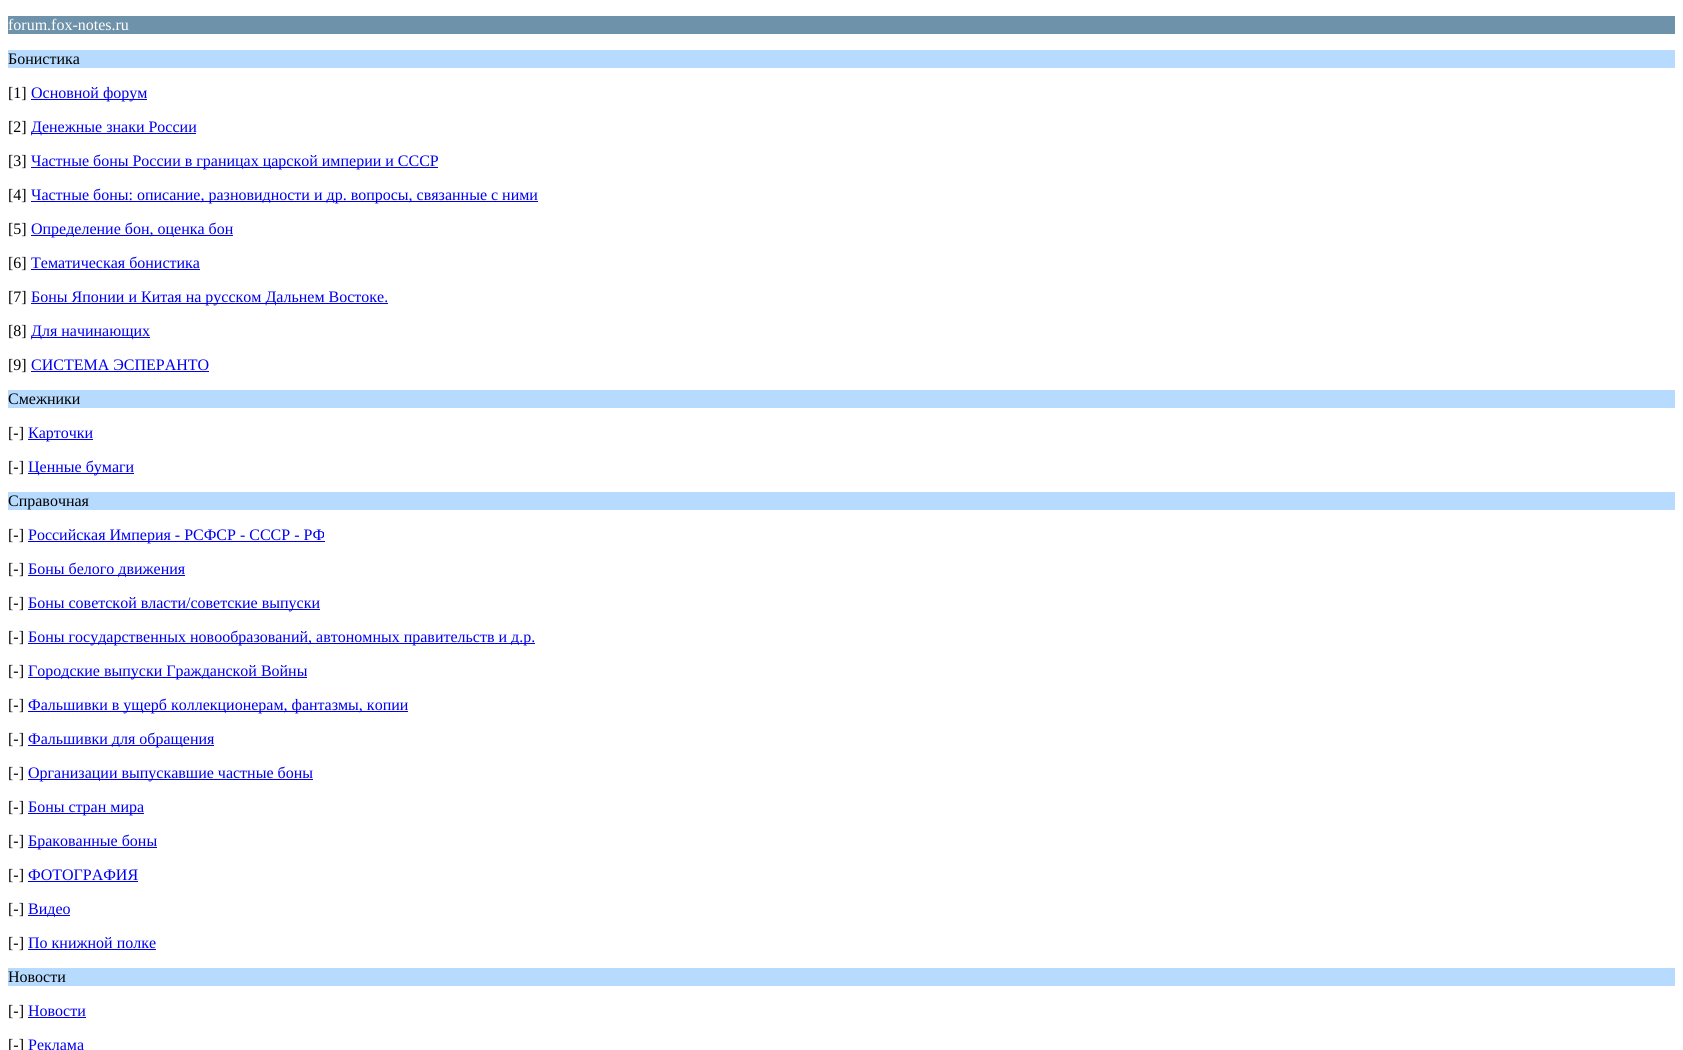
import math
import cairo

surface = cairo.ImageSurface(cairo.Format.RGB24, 1683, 1050)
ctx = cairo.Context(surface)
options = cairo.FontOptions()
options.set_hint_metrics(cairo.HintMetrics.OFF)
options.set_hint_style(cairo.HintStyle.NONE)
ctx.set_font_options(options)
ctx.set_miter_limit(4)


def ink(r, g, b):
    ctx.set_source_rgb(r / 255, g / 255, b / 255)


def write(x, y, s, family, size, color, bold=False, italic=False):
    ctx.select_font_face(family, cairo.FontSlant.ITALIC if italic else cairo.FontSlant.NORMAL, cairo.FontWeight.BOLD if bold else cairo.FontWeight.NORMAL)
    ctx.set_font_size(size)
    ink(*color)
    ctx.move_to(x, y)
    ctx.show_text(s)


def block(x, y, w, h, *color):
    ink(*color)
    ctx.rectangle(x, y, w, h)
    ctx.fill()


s1 = dict(family="Liberation Serif", size=16, color=(255, 255, 255))
s2 = dict(family="Liberation Serif", size=16, color=(0, 0, 0))
s3 = dict(family="Liberation Serif", size=16, color=(0, 0, 238))

ink(255, 255, 255)
ctx.paint()
block(8, 16, 1667, 18, 109, 146, 170)
write(8, 30, "forum.fox-notes.ru", **s1)
block(8, 50, 1667, 18, 182, 219, 255)
write(8, 64, "Бонистика", **s2)
write(8, 98, "[1]", **s2)
block(31, 99, 116, 1, 0, 0, 238)
write(31, 98, "Основной форум", **s3)
write(8, 132, "[2]", **s2)
block(31, 133, 165, 1, 0, 0, 238)
write(31, 132, "Денежные знаки России", **s3)
write(8, 166, "[3]", **s2)
block(31, 167, 407, 1, 0, 0, 238)
write(31, 166, "Частные боны России в границах царской империи и СССР", **s3)
write(8, 200, "[4]", **s2)
block(31, 201, 507, 1, 0, 0, 238)
write(31, 200, "Частные боны: описание, разновидности и др. вопросы, связанные с ними", **s3)
write(8, 234, "[5]", **s2)
block(31, 235, 202, 1, 0, 0, 238)
write(31, 234, "Определение бон, оценка бон", **s3)
write(8, 268, "[6]", **s2)
write(31, 268, "Тематическая бонистика", **s3)
block(31, 269, 169, 1, 0, 0, 238)
write(8, 302, "[7]", **s2)
block(31, 303, 357, 1, 0, 0, 238)
write(31, 302, "Боны Японии и Китая на русском Дальнем Востоке.", **s3)
write(8, 336, "[8]", **s2)
block(31, 337, 119, 1, 0, 0, 238)
write(31, 336, "Для начинающих", **s3)
write(8, 370, "[9]", **s2)
write(31, 370, "СИСТЕМА ЭСПЕРАНТО", **s3)
block(31, 371, 178, 1, 0, 0, 238)
block(8, 390, 1667, 18, 182, 219, 255)
write(8, 404, "Смежники", **s2)
write(8, 438, "[-]", **s2)
block(28, 439, 65, 1, 0, 0, 238)
write(28, 438, "Карточки", **s3)
write(8, 472, "[-]", **s2)
block(28, 473, 106, 1, 0, 0, 238)
write(28, 472, "Ценные бумаги", **s3)
block(8, 492, 1667, 18, 182, 219, 255)
write(8, 506, "Справочная", **s2)
write(8, 540, "[-]", **s2)
block(28, 541, 297, 1, 0, 0, 238)
write(28, 540, "Российская Империя - РСФСР - СССР - РФ", **s3)
write(8, 574, "[-]", **s2)
block(28, 575, 157, 1, 0, 0, 238)
write(28, 574, "Боны белого движения", **s3)
write(8, 608, "[-]", **s2)
block(28, 609, 292, 1, 0, 0, 238)
write(28, 608, "Боны советской власти/советские выпуски", **s3)
write(8, 642, "[-]", **s2)
block(28, 643, 507, 1, 0, 0, 238)
write(28, 642, "Боны государственных новообразований, автономных правительств и д.р.", **s3)
write(8, 676, "[-]", **s2)
block(28, 677, 279, 1, 0, 0, 238)
write(28, 676, "Городские выпуски Гражданской Войны", **s3)
write(8, 710, "[-]", **s2)
block(28, 711, 380, 1, 0, 0, 238)
write(28, 710, "Фальшивки в ущерб коллекционерам, фантазмы, копии", **s3)
write(8, 744, "[-]", **s2)
block(28, 745, 186, 1, 0, 0, 238)
write(28, 744, "Фальшивки для обращения", **s3)
write(8, 778, "[-]", **s2)
block(28, 779, 285, 1, 0, 0, 238)
write(28, 778, "Организации выпускавшие частные боны", **s3)
write(8, 812, "[-]", **s2)
block(28, 813, 116, 1, 0, 0, 238)
write(28, 812, "Боны стран мира", **s3)
write(8, 846, "[-]", **s2)
block(28, 847, 129, 1, 0, 0, 238)
write(28, 846, "Бракованные боны", **s3)
write(8, 880, "[-]", **s2)
write(28, 880, "ФОТОГРАФИЯ", **s3)
block(28, 881, 110, 1, 0, 0, 238)
write(8, 914, "[-]", **s2)
block(28, 915, 42, 1, 0, 0, 238)
write(28, 914, "Видео", **s3)
write(8, 948, "[-]", **s2)
write(28, 948, "По книжной полке", **s3)
block(28, 949, 128, 1, 0, 0, 238)
block(8, 968, 1667, 18, 182, 219, 255)
write(8, 982, "Новости", **s2)
write(8, 1016, "[-]", **s2)
write(28, 1016, "Новости", **s3)
block(28, 1017, 58, 1, 0, 0, 238)
write(8, 1050, "[-]", **s2)
write(28, 1050, "Реклама", **s3)
surface.write_to_png("screenshot.png")
